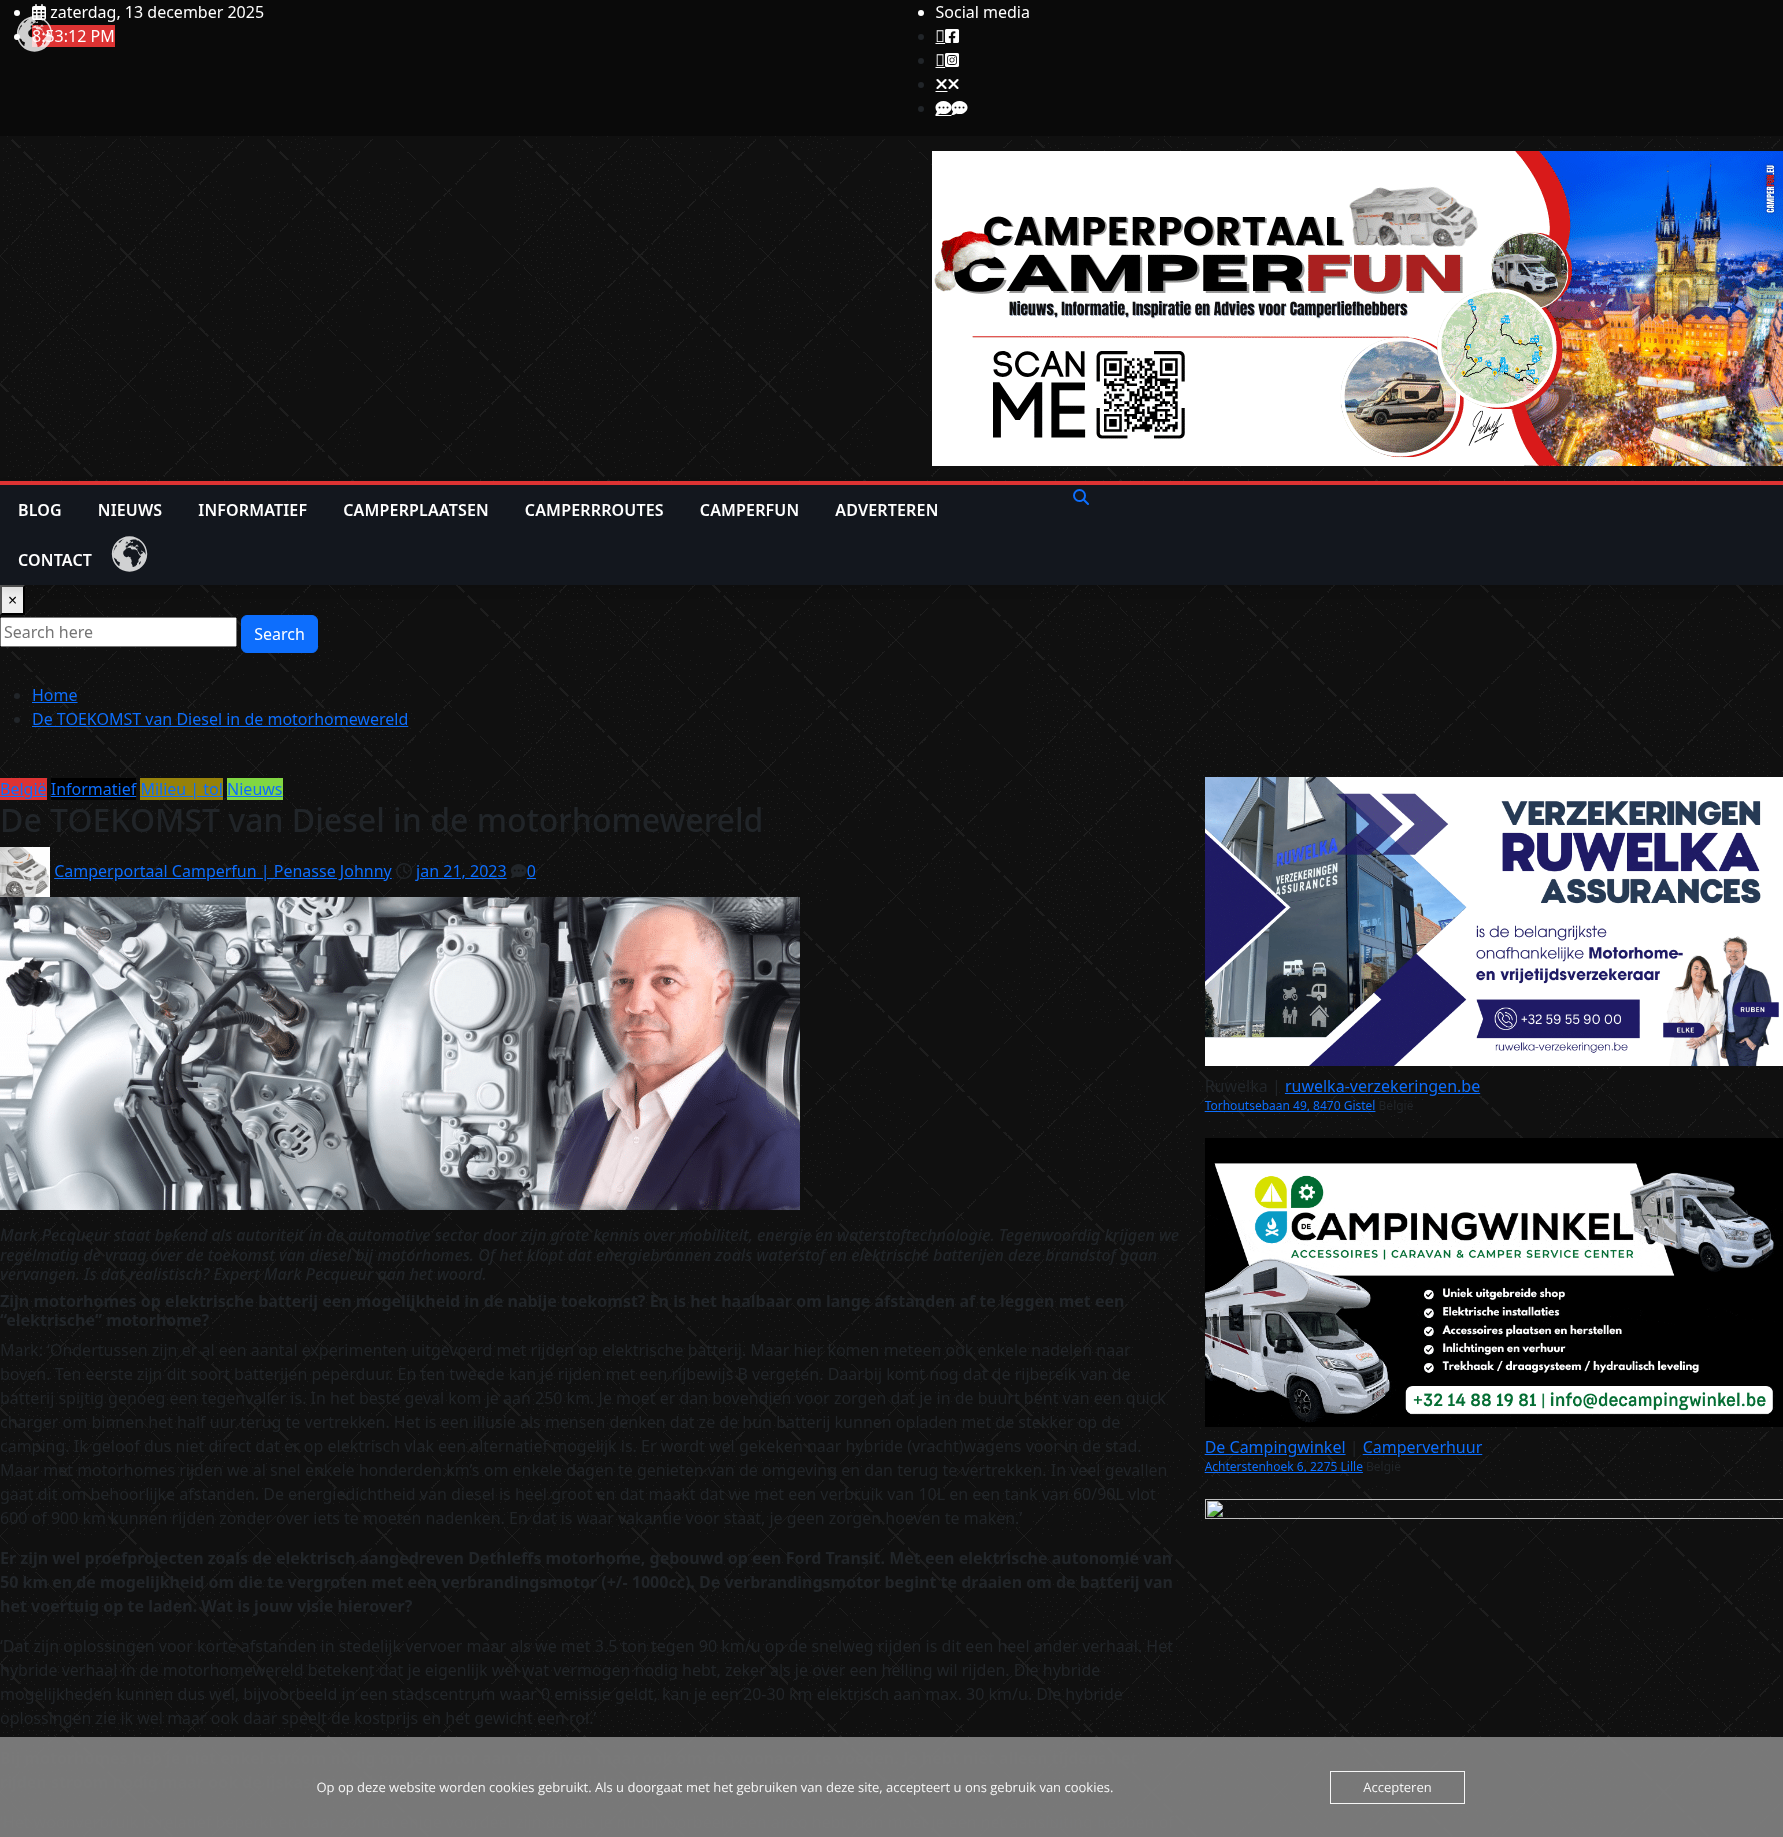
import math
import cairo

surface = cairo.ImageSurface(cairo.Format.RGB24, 1783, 1837)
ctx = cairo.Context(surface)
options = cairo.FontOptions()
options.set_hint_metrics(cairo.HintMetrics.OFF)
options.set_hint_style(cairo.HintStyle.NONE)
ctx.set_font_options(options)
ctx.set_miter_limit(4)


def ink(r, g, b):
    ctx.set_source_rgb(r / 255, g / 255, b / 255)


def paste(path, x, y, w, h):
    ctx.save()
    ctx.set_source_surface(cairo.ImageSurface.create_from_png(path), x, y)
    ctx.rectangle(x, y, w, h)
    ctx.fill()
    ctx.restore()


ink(255, 255, 255)
ctx.paint()
paste("pic1.png", 0, 0, 1783, 1837)
surface.write_to_png("screenshot.png")
